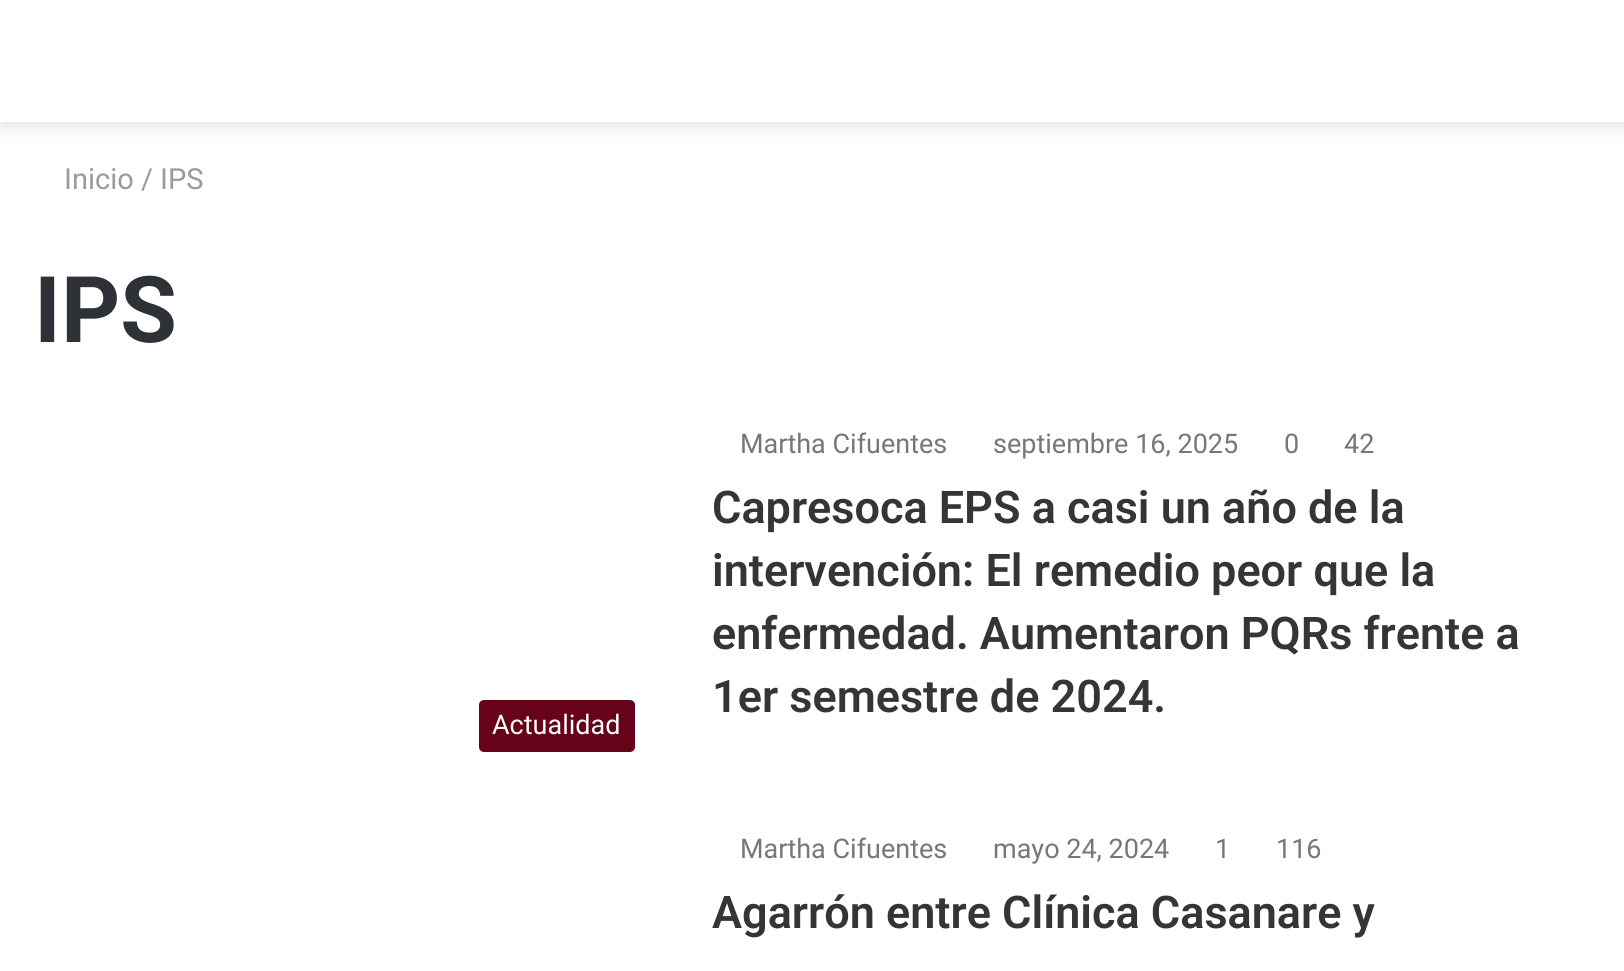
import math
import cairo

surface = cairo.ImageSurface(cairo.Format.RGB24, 1624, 971)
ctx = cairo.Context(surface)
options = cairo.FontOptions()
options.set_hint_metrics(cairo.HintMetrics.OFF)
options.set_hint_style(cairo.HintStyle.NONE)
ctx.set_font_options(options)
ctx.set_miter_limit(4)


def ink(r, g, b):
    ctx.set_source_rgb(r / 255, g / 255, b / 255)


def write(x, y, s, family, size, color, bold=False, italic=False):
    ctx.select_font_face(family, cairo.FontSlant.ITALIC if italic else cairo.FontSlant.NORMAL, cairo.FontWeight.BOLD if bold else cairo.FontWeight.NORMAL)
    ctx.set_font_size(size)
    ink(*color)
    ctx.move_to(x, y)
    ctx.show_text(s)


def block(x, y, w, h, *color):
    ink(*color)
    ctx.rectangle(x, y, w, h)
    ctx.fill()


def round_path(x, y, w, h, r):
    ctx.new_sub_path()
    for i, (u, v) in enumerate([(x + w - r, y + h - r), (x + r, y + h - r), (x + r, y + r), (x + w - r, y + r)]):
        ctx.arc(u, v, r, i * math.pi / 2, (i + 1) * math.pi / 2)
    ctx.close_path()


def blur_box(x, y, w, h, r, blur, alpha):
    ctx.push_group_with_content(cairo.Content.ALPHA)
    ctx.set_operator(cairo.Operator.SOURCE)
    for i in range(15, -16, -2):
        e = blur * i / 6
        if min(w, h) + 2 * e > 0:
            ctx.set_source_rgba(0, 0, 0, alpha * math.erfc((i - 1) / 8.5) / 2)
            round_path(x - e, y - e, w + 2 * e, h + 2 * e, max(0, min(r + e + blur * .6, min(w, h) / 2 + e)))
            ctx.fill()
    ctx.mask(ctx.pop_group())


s1 = dict(family="Roboto", size=29, color=(154, 154, 154))
s2 = dict(family="Roboto", size=92, color=(46, 49, 54), bold=True)
s3 = dict(family="Roboto", size=27, color=(119, 119, 119))
s4 = dict(family="Roboto SemiBold", size=45, color=(53, 53, 53))
s5 = dict(family="Roboto", size=27, color=(255, 255, 255))

ink(255, 255, 255)
ctx.paint()
ink(0, 0, 0)
blur_box(0, 7, 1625, 121, 0, 8, 0.1)
block(0, 0, 1624, 122, 255, 255, 255)
write(64, 189, "Inicio", **s1)
write(141, 189, "/", **s1)
write(160, 189, "IPS", **s1)
write(34, 342, "IPS", **s2)
write(740, 453, "Martha Cifuentes", **s3)
write(993, 453, "septiembre 16, 2025", **s3)
write(1284, 453, "0", **s3)
write(1344, 453, "42", **s3)
write(712, 523, "Capresoca EPS a casi un año de la", **s4)
write(712, 586, "intervención: El remedio peor que la", **s4)
write(712, 649, "enfermedad. Aumentaron PQRs frente a", **s4)
write(712, 712, "1er semestre de 2024.", **s4)
ink(103, 3, 25)
round_path(479, 700, 156, 52, 5)
ctx.fill()
write(492, 734, "Actualidad", **s5)
write(740, 858, "Martha Cifuentes", **s3)
write(993, 858, "mayo 24, 2024", **s3)
write(1215, 858, "1", **s3)
write(1276, 858, "116", **s3)
write(712, 928, "Agarrón entre Clínica Casanare y", **s4)
surface.write_to_png("screenshot.png")
